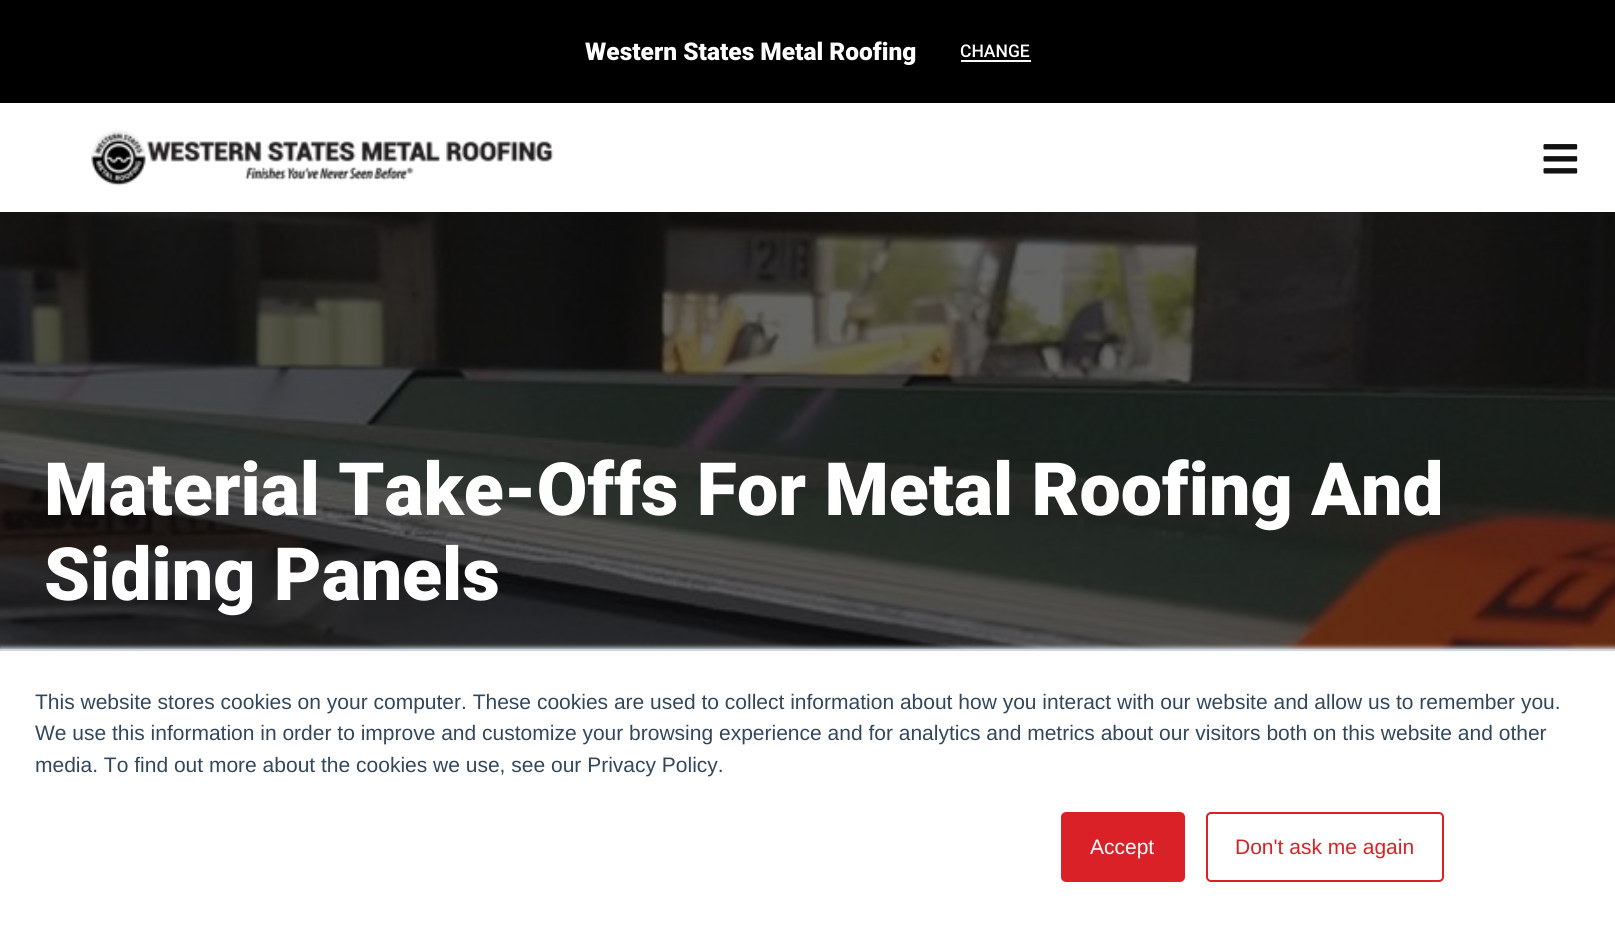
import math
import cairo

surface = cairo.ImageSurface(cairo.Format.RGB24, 1615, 927)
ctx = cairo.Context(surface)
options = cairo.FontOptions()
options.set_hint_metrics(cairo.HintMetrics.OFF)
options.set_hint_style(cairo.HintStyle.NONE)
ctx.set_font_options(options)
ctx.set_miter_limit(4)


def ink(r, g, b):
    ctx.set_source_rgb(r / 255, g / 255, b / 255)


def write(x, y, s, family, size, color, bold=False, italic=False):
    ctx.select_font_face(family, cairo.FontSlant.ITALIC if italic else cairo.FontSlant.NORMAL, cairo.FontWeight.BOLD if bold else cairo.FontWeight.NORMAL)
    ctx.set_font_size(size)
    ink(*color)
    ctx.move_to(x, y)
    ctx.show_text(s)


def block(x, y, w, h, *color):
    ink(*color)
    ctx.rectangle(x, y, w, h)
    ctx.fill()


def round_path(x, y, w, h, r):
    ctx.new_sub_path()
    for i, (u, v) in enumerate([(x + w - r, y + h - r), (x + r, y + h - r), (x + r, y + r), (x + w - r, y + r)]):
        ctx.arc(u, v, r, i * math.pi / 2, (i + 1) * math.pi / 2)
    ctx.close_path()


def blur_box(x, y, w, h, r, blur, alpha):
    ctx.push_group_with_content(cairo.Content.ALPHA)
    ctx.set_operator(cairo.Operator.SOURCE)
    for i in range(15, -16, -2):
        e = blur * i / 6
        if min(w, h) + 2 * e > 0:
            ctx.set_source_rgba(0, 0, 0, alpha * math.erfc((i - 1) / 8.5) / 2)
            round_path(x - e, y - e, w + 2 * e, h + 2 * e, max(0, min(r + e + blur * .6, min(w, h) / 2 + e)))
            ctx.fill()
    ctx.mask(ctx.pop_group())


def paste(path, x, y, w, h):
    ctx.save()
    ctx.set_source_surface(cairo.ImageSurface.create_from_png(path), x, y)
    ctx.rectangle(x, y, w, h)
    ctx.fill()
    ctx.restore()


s1 = dict(family="Roboto Black", size=24.5, color=(255, 255, 255))
s2 = dict(family="Roboto Medium", size=17.5, color=(255, 255, 255))
s3 = dict(family="Roboto Black", size=73.5, color=(255, 255, 255))
s4 = dict(family="Liberation Sans", size=21, color=(51, 71, 91))
s5 = dict(family="Liberation Sans", size=21, color=(255, 255, 255))
s6 = dict(family="Liberation Sans", size=21, color=(218, 33, 40))

ink(255, 255, 255)
ctx.paint()
block(0, 0, 1615, 103, 0, 0, 0)
write(585, 60, "Western States Metal Roofing", **s1)
write(960, 57, "CHANGE", **s2)
block(961, 60, 70, 2, 255, 255, 255)
paste("pic1.png", 91, 129, 463, 57)
paste("pic2.png", 1543, 144, 35, 30)
paste("pic3.png", 0, 212, 1615, 437)
write(44, 515, "Material Take-Offs For Metal Roofing And", **s3)
write(44, 600, "Siding Panels", **s3)
ink(234, 240, 246)
blur_box(0, 648, 1615, 278, 0, 2.5, 1)
block(0, 651, 1615, 276, 255, 255, 255)
block(0, 649, 1615, 2, 203, 214, 226)
write(35, 709, "This website stores cookies on your computer. These cookies are used to collect information about how you interact with our website and allow us to remember you.", **s4)
write(35, 740, "We use this information in order to improve and customize your browsing experience and for analytics and metrics about our visitors both on this website and other", **s4)
write(35, 772, "media. To find out more about the cookies we use, see our Privacy Policy.", **s4)
ink(218, 33, 40)
round_path(1062, 813, 122, 68, 4)
ctx.fill_preserve()
ctx.stroke()
write(1090, 854, "Accept", **s5)
round_path(1207, 813, 236, 68, 4)
ink(218, 33, 40)
ctx.stroke()
write(1235, 854, "Don't ask me again", **s6)
surface.write_to_png("screenshot.png")
